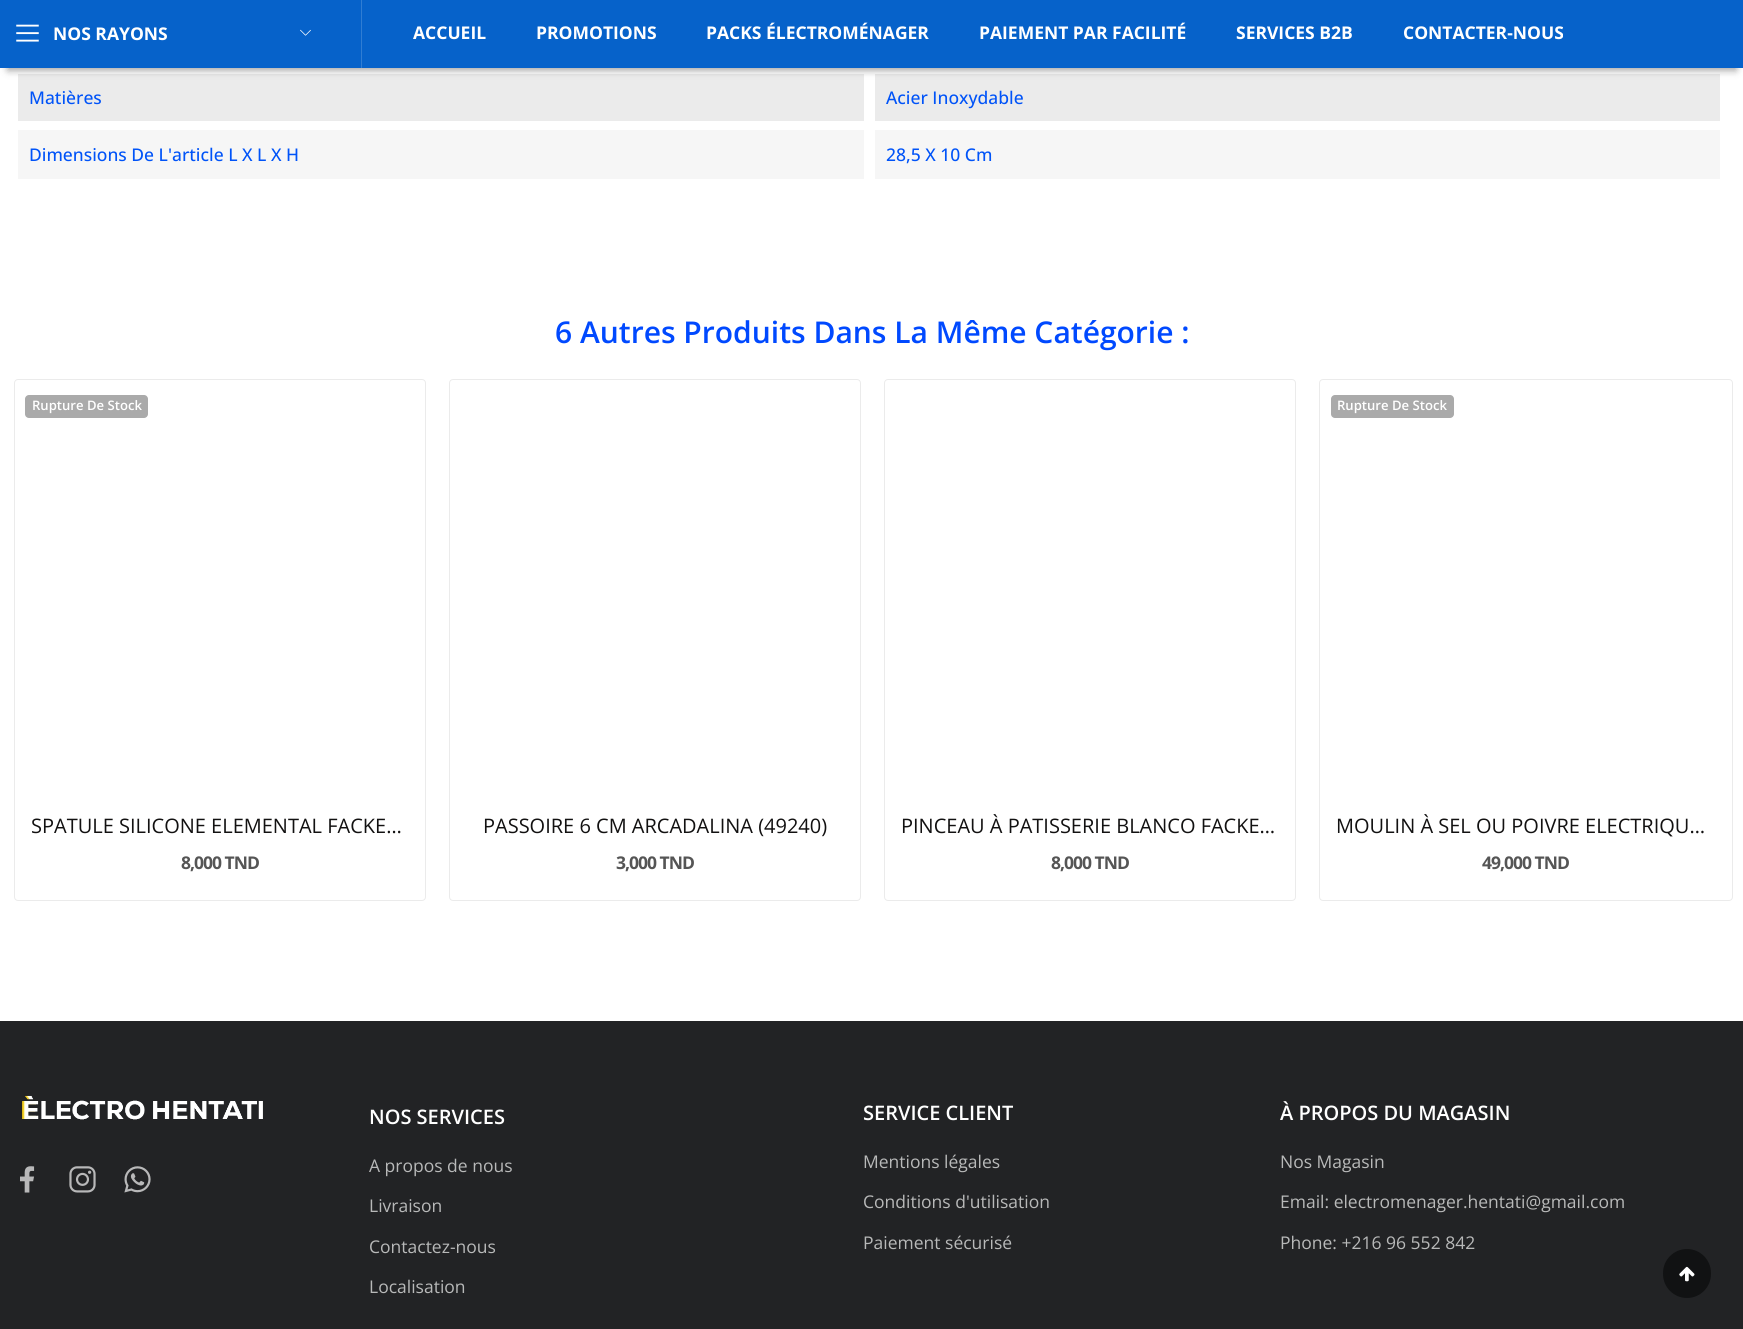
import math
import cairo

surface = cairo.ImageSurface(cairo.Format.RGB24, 1743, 1329)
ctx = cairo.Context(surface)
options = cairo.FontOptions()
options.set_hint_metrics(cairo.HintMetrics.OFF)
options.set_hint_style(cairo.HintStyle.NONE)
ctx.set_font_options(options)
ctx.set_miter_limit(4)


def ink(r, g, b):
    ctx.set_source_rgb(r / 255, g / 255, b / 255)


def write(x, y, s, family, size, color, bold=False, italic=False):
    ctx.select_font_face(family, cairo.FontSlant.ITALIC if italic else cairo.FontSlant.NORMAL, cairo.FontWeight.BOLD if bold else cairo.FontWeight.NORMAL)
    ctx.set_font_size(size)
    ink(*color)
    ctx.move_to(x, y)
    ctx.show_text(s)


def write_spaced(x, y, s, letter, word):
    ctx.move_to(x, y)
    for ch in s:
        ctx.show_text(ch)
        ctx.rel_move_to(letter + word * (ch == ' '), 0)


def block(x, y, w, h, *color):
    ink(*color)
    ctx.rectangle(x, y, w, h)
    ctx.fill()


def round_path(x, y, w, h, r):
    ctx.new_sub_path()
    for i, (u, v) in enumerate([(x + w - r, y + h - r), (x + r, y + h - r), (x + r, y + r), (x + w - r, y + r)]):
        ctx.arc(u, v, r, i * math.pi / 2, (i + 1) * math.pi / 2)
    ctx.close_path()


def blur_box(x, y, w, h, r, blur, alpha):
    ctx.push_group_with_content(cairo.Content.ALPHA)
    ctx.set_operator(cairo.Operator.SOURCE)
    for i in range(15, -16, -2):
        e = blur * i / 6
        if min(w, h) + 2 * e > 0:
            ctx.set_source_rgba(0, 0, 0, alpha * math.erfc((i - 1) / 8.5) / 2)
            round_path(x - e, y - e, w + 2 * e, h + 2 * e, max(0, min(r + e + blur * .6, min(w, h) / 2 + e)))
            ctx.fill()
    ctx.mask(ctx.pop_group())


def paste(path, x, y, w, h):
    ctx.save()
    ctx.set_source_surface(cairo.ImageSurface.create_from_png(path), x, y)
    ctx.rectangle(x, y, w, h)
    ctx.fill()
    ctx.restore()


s1 = dict(family="Open Sans", size=17.5, color=(255, 255, 255), bold=True)
s2 = dict(family="Open Sans Medium", size=17.5, color=(0, 83, 248))
s3 = dict(family="Open Sans SemiBold", size=30, color=(0, 73, 255))
s4 = dict(family="Open Sans SemiBold", size=13.1, color=(255, 255, 255))
s5 = dict(family="Open Sans", size=20, color=(18, 17, 17))
s6 = dict(family="Open Sans SemiBold", size=20, color=(255, 255, 255))
s7 = dict(family="Open Sans", size=17.5, color=(184, 185, 185))

ink(255, 255, 255)
ctx.paint()
block(18, 74, 846, 47, 235, 235, 235)
block(875, 74, 845, 47, 235, 235, 235)
ink(0, 0, 0)
blur_box(8, 18, 1728, 52, 0, 4, 0.4)
block(0, 0, 1743, 68, 6, 98, 202)
block(361, 0, 1, 68, 48, 125, 211)
paste("pic1.png", 16, 24, 23, 18)
write(53, 40, "NOS RAYONS", **s1)
paste("pic2.png", 300, 29, 11, 7)
write(413, 39, "ACCUEIL", **s1)
write(536, 39, "PROMOTIONS", **s1)
write(706, 39, "PACKS ÉLECTROMÉNAGER", **s1)
write(979, 39, "PAIEMENT PAR FACILITÉ", **s1)
write(1236, 39, "SERVICES B2B", **s1)
write(1403, 39, "CONTACTER-NOUS", **s1)
write(29, 104, "Matières", **s2)
write(886, 104, "Acier Inoxydable", **s2)
block(18, 130, 846, 49, 246, 246, 246)
write(29, 161, "Dimensions De L'article L X L X H", **s2)
block(875, 130, 845, 49, 246, 246, 246)
write(886, 161, "28,5 X 10 Cm", **s2)
write(555, 343, "6 Autres Produits Dans La Même Catégorie :", **s3)
round_path(14.5, 379.5, 411, 521, 3.5)
ink(235, 235, 235)
ctx.set_line_width(1)
ctx.stroke()
ink(170, 170, 170)
round_path(25, 395, 123, 23, 4)
ctx.fill()
write(32, 410, "Rupture De Stock", **s4)
write(31, 833, "SPATULE SILICONE ELEMENTAL FACKE…", **s5)
ctx.select_font_face("Open Sans", cairo.FontSlant.NORMAL, cairo.FontWeight.BOLD)
ctx.set_font_size(17.5)
ink(85, 85, 85)
write_spaced(181, 869, "8,000 TND", -1, 0)
round_path(449.5, 379.5, 411, 521, 3.5)
ink(235, 235, 235)
ctx.stroke()
write(483, 833, "PASSOIRE 6 CM ARCADALINA (49240)", **s5)
ctx.select_font_face("Open Sans", cairo.FontSlant.NORMAL, cairo.FontWeight.BOLD)
ctx.set_font_size(17.5)
ink(85, 85, 85)
write_spaced(616, 869, "3,000 TND", -1, 0)
round_path(884.5, 379.5, 411, 521, 3.5)
ink(235, 235, 235)
ctx.stroke()
write(901, 833, "PINCEAU À PATISSERIE BLANCO FACKE…", **s5)
ctx.select_font_face("Open Sans", cairo.FontSlant.NORMAL, cairo.FontWeight.BOLD)
ctx.set_font_size(17.5)
ink(85, 85, 85)
write_spaced(1051, 869, "8,000 TND", -1, 0)
round_path(1319.5, 379.5, 413, 521, 3.5)
ink(235, 235, 235)
ctx.stroke()
ink(170, 170, 170)
round_path(1331, 395, 123, 23, 4)
ctx.fill()
write(1337, 410, "Rupture De Stock", **s4)
write(1336, 833, "MOULIN À SEL OU POIVRE ELECTRIQU…", **s5)
ctx.select_font_face("Open Sans", cairo.FontSlant.NORMAL, cairo.FontWeight.BOLD)
ctx.set_font_size(17.5)
ink(85, 85, 85)
write_spaced(1482, 869, "49,000 TND", -1, 0)
block(0, 1021, 1743, 308, 34, 35, 37)
paste("pic3.png", 22, 1095, 241, 25)
paste("pic4.png", 20, 1166, 15, 27)
paste("pic5.png", 69, 1166, 27, 27)
paste("pic6.png", 124, 1166, 27, 27)
write(369, 1124, "NOS SERVICES", **s6)
write(369, 1172, "A propos de nous", **s7)
write(369, 1212, "Livraison", **s7)
write(369, 1253, "Contactez-nous", **s7)
write(369, 1293, "Localisation", **s7)
write(863, 1120, "SERVICE CLIENT", **s6)
write(863, 1168, "Mentions légales", **s7)
write(863, 1208, "Conditions d'utilisation", **s7)
write(863, 1249, "Paiement sécurisé", **s7)
write(1280, 1120, "À PROPOS DU MAGASIN", **s6)
write(1280, 1168, "Nos Magasin", **s7)
write(1280, 1208, "Email: electromenager.hentati@gmail.com", **s7)
write(1280, 1249, "Phone: +216 96 552 842", **s7)
ink(17, 18, 19)
round_path(1663, 1249, 48, 49, 24)
ctx.fill()
paste("pic7.png", 1679, 1266, 16, 16)
surface.write_to_png("screenshot.png")
